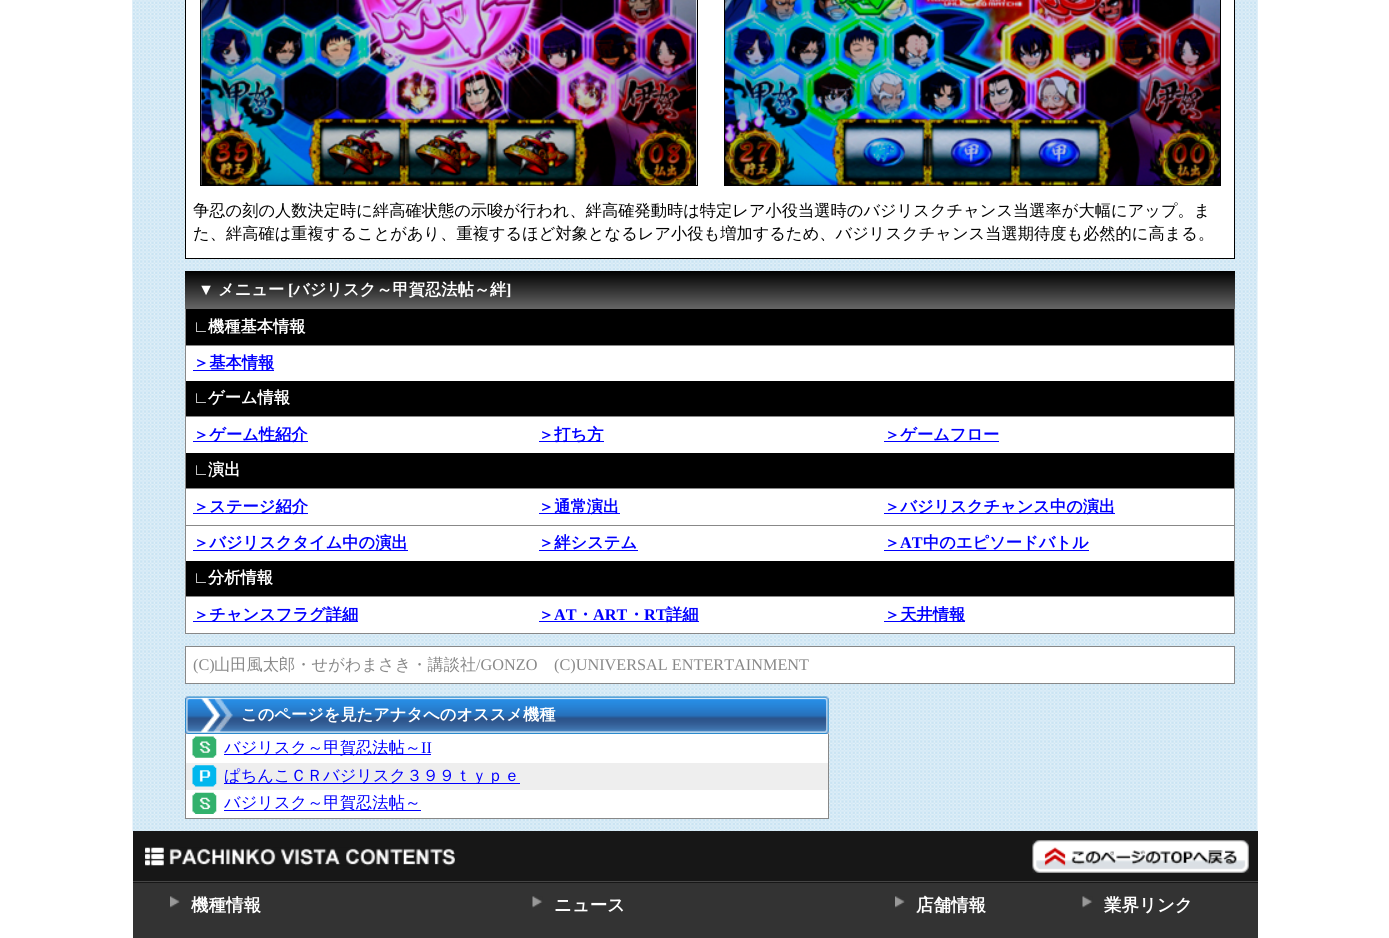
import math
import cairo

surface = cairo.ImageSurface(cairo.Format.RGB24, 1389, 938)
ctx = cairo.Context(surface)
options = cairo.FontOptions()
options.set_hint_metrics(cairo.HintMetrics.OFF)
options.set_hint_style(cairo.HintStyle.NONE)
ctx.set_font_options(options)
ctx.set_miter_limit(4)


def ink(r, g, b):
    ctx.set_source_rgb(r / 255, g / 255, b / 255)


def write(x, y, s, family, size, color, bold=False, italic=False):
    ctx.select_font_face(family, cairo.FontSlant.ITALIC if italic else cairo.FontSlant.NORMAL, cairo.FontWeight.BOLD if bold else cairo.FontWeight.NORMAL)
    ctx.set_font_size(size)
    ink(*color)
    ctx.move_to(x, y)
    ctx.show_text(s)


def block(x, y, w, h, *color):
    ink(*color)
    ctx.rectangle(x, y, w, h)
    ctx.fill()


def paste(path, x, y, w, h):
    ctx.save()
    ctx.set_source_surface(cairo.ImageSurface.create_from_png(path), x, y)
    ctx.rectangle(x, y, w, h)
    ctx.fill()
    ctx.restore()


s1 = dict(family="WenQuanYi Zen Hei Medium", size=16.25, color=(0, 0, 0))
s2 = dict(family="Liberation Serif", size=16.25, color=(255, 255, 255), bold=True)
s3 = dict(family="WenQuanYi Zen Hei", size=16.25, color=(255, 255, 255), bold=True)
s4 = dict(family="WenQuanYi Zen Hei", size=16.25, color=(1, 0, 254), bold=True)
s5 = dict(family="Liberation Serif", size=16.25, color=(1, 0, 254), bold=True)
s6 = dict(family="Liberation Serif", size=16.25, color=(136, 136, 136))
s7 = dict(family="WenQuanYi Zen Hei Medium", size=16.25, color=(136, 136, 136))
s8 = dict(family="WenQuanYi Zen Hei Medium", size=16.25, color=(1, 0, 254))
s9 = dict(family="Liberation Serif", size=16.25, color=(1, 0, 254))
s10 = dict(family="WenQuanYi Zen Hei", size=17.5, color=(255, 255, 255), bold=True)

ink(255, 255, 255)
ctx.paint()
paste("pic1.png", 132, 0, 1126, 832)
paste("pic2.png", 132, 0, 1126, 272)
block(185, 0, 1050, 259, 0, 0, 0)
block(186, 0, 1048, 258, 255, 255, 255)
ctx.rectangle(200.5, -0.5, 497, 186)
ink(0, 0, 0)
ctx.set_line_width(1)
ctx.stroke()
paste("pic3.png", 201, 0, 496, 186)
ctx.rectangle(724.5, -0.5, 496, 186)
ctx.stroke()
paste("pic4.png", 725, 0, 495, 186)
write(193, 216, "争忍の刻の人数決定時に絆高確状態の示唆が行われ、絆高確発動時は特定レア小役当選時のバジリスクチャンス当選率が大幅にアップ。ま", **s1)
write(193, 239, "た、絆高確は重複することがあり、重複するほど対象となるレア小役も増加するため、バジリスクチャンス当選期待度も必然的に高まる。", **s1)
block(186, 346, 1048, 287, 255, 255, 255)
gradient = cairo.LinearGradient(710, 271, 710, 309)
gradient.add_color_stop_rgba(0, 0, 0, 0, 1)
gradient.add_color_stop_rgba(1, 0.4, 0.4, 0.4, 1)
ctx.set_source(gradient)
ctx.rectangle(185, 271, 1050, 38)
ctx.fill()
write(198, 295, "▼", **s2)
write(218, 295, "メニュー", **s3)
write(288, 295, "[", **s2)
write(293, 295, "バジリスク～甲賀忍法帖～絆", **s3)
write(506, 295, "]", **s2)
block(1234, 309, 1, 325, 136, 136, 136)
block(185, 633, 1050, 1, 136, 136, 136)
block(185, 309, 1, 325, 136, 136, 136)
block(186, 309, 1048, 36, 0, 0, 0)
write(193, 332, "∟", **s2)
write(208, 332, "機種基本情報", **s3)
block(186, 345, 1048, 1, 136, 136, 136)
block(193, 370, 81, 1, 1, 0, 254)
write(193, 368, "＞基本情報", **s4)
block(186, 381, 1048, 35, 0, 0, 0)
write(193, 403, "∟", **s2)
write(208, 403, "ゲーム情報", **s3)
block(186, 416, 1048, 1, 136, 136, 136)
block(193, 441, 115, 1, 1, 0, 254)
write(193, 440, "＞ゲーム性紹介", **s4)
block(539, 441, 65, 1, 1, 0, 254)
write(538, 440, "＞打ち方", **s4)
block(884, 441, 115, 1, 1, 0, 254)
write(884, 440, "＞ゲームフロー", **s4)
block(186, 453, 1048, 35, 0, 0, 0)
write(193, 475, "∟", **s2)
write(208, 475, "演出", **s3)
block(186, 488, 1048, 1, 136, 136, 136)
block(193, 513, 115, 1, 1, 0, 254)
write(193, 512, "＞ステージ紹介", **s4)
block(539, 513, 81, 1, 1, 0, 254)
write(538, 512, "＞通常演出", **s4)
block(884, 513, 231, 1, 1, 0, 254)
write(884, 512, "＞バジリスクチャンス中の演出", **s4)
block(186, 525, 1048, 1, 136, 136, 136)
block(193, 550, 215, 1, 1, 0, 254)
write(193, 548, "＞バジリスクタイム中の演出", **s4)
write(538, 548, "＞絆システム", **s4)
block(539, 550, 99, 1, 1, 0, 254)
write(884, 548, "＞", **s4)
block(884, 550, 205, 1, 1, 0, 254)
write(900, 548, "AT", **s5)
write(923, 548, "中のエピソードバトル", **s4)
block(186, 561, 1048, 35, 0, 0, 0)
write(193, 583, "∟", **s2)
write(208, 583, "分析情報", **s3)
block(186, 596, 1048, 1, 136, 136, 136)
block(193, 621, 165, 1, 1, 0, 254)
write(193, 620, "＞チャンスフラグ詳細", **s4)
write(538, 620, "＞", **s4)
block(539, 621, 160, 1, 1, 0, 254)
write(554, 620, "AT", **s5)
write(577, 620, "・", **s4)
write(593, 620, "ART", **s5)
write(628, 620, "・", **s4)
write(644, 620, "RT", **s5)
write(666, 620, "詳細", **s4)
block(884, 621, 81, 1, 1, 0, 254)
write(884, 620, "＞天井情報", **s4)
ink(255, 255, 255)
ctx.rectangle(185.5, 646.5, 1049, 37)
ctx.fill_preserve()
ink(136, 136, 136)
ctx.stroke()
write(193, 670, "(C)", **s6)
write(214, 670, "山田風太郎・せがわまさき・講談社", **s7)
write(476, 670, "/GONZO", **s6)
write(554, 670, "(C)UNIVERSAL ENTERTAINMENT", **s6)
paste("pic5.png", 185, 696, 644, 38)
write(241, 720, "このページを見たアナタへのオススメ機種", **s3)
block(186, 734, 642, 84, 255, 255, 255)
block(828, 734, 1, 85, 136, 136, 136)
block(185, 818, 644, 1, 136, 136, 136)
block(185, 734, 1, 85, 136, 136, 136)
paste("pic6.png", 192, 736, 25, 22)
block(224, 754, 207, 1, 1, 0, 254)
write(224, 753, "バジリスク～甲賀忍法帖～", **s8)
write(421, 753, "II", **s9)
block(186, 763, 642, 27, 238, 238, 238)
paste("pic7.png", 192, 765, 25, 22)
block(224, 783, 296, 1, 1, 0, 254)
write(224, 781, "ぱちんこＣＲバジリスク３９９ｔｙｐｅ", **s8)
paste("pic8.png", 192, 792, 25, 22)
block(224, 810, 197, 1, 1, 0, 254)
write(224, 808, "バジリスク～甲賀忍法帖～", **s8)
block(133, 831, 1125, 52, 23, 23, 23)
block(133, 881, 1125, 1, 69, 69, 69)
paste("pic9.png", 145, 847, 310, 19)
paste("pic10.png", 1032, 840, 217, 33)
block(133, 883, 1125, 55, 51, 51, 51)
paste("pic11.png", 170, 896, 10, 12)
write(191, 911, "機種情報", **s10)
paste("pic12.png", 532, 896, 11, 12)
write(554, 911, "ニュース", **s10)
paste("pic11.png", 895, 896, 10, 12)
write(916, 911, "店舗情報", **s10)
paste("pic12.png", 1082, 896, 11, 12)
write(1104, 911, "業界リンク", **s10)
surface.write_to_png("screenshot.png")
